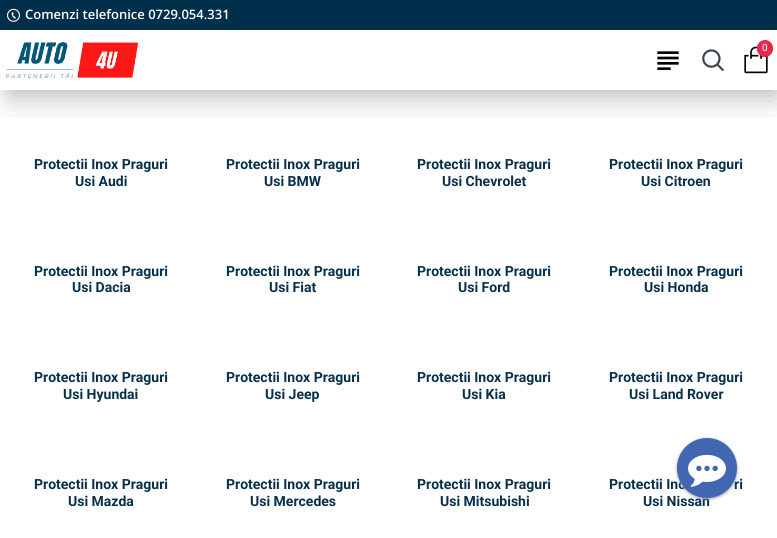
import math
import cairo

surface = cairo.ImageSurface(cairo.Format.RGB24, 777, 538)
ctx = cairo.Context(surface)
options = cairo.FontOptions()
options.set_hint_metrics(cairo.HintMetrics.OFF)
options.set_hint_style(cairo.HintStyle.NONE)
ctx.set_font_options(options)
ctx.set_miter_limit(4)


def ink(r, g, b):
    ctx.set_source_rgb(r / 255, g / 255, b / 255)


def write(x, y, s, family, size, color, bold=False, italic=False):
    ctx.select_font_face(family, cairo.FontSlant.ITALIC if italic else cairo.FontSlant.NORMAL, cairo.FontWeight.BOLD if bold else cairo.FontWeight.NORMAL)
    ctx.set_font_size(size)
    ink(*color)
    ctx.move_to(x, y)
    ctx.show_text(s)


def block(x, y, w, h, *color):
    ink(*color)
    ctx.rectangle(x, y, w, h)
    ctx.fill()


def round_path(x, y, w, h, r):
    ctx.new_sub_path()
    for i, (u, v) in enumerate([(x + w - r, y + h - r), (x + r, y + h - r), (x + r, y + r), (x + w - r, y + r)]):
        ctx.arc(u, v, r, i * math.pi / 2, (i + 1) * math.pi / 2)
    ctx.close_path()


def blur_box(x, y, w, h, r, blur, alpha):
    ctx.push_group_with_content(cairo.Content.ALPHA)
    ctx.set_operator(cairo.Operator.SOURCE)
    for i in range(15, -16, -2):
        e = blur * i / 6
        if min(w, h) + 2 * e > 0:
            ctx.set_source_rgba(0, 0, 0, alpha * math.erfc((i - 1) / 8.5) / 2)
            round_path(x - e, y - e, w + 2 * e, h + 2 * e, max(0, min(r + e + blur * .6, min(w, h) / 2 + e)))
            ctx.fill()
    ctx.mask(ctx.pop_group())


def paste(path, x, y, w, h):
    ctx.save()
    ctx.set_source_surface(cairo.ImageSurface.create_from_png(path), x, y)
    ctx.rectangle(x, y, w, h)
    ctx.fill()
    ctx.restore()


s1 = dict(family="Open Sans SemiBold", size=13, color=(255, 255, 255))
s2 = dict(family="Roboto", size=10, color=(255, 255, 255))
s3 = dict(family="Roboto", size=14, color=(6, 48, 75), bold=True)

ink(255, 255, 255)
ctx.paint()
ctx.save()
ctx.rectangle(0, 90, 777, 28)
ctx.clip()
ink(0, 0, 0)
blur_box(10, 45, 767, 50, 0, 15, 0.3)
ctx.restore()
block(0, 0, 777, 30, 0, 47, 76)
paste("pic1.png", 7, 8, 13, 14)
write(25, 19, "Comenzi telefonice 0729.054.331", **s1)
paste("pic2.png", 5, 42, 134, 37)
paste("pic3.png", 744, 46, 24, 28)
ink(231, 40, 77)
round_path(757, 40, 16, 17, 8)
ctx.fill()
write(762, 51, "0", **s2)
paste("pic4.png", 657, 51, 22, 19)
paste("pic5.png", 702, 49, 22, 22)
write(34, 169, "Protectii Inox Praguri", **s3)
write(75, 186, "Usi Audi", **s3)
write(226, 169, "Protectii Inox Praguri", **s3)
write(264, 186, "Usi BMW", **s3)
write(417, 169, "Protectii Inox Praguri", **s3)
write(442, 186, "Usi Chevrolet", **s3)
write(609, 169, "Protectii Inox Praguri", **s3)
write(641, 186, "Usi Citroen", **s3)
write(34, 276, "Protectii Inox Praguri", **s3)
write(72, 292, "Usi Dacia", **s3)
write(226, 276, "Protectii Inox Praguri", **s3)
write(269, 292, "Usi Fiat", **s3)
write(417, 276, "Protectii Inox Praguri", **s3)
write(458, 292, "Usi Ford", **s3)
write(609, 276, "Protectii Inox Praguri", **s3)
write(644, 292, "Usi Honda", **s3)
write(34, 382, "Protectii Inox Praguri", **s3)
write(63, 399, "Usi Hyundai", **s3)
write(226, 382, "Protectii Inox Praguri", **s3)
write(265, 399, "Usi Jeep", **s3)
write(417, 382, "Protectii Inox Praguri", **s3)
write(462, 399, "Usi Kia", **s3)
write(609, 382, "Protectii Inox Praguri", **s3)
write(629, 399, "Usi Land Rover", **s3)
write(34, 489, "Protectii Inox Praguri", **s3)
write(68, 506, "Usi Mazda", **s3)
write(226, 489, "Protectii Inox Praguri", **s3)
write(250, 506, "Usi Mercedes", **s3)
write(417, 489, "Protectii Inox Praguri", **s3)
write(440, 506, "Usi Mitsubishi", **s3)
write(609, 489, "Protectii Ino", **s3)
write(734, 489, "ri", **s3)
write(643, 506, "Usi Nissan", **s3)
ink(153, 153, 153)
blur_box(677, 439, 60, 60, 30, 1.5, 1)
ink(66, 103, 178)
ctx.arc(707, 468, 30, 0, 2 * math.pi)
ctx.fill()
paste("pic6.png", 688, 454, 38, 33)
surface.write_to_png("screenshot.png")
